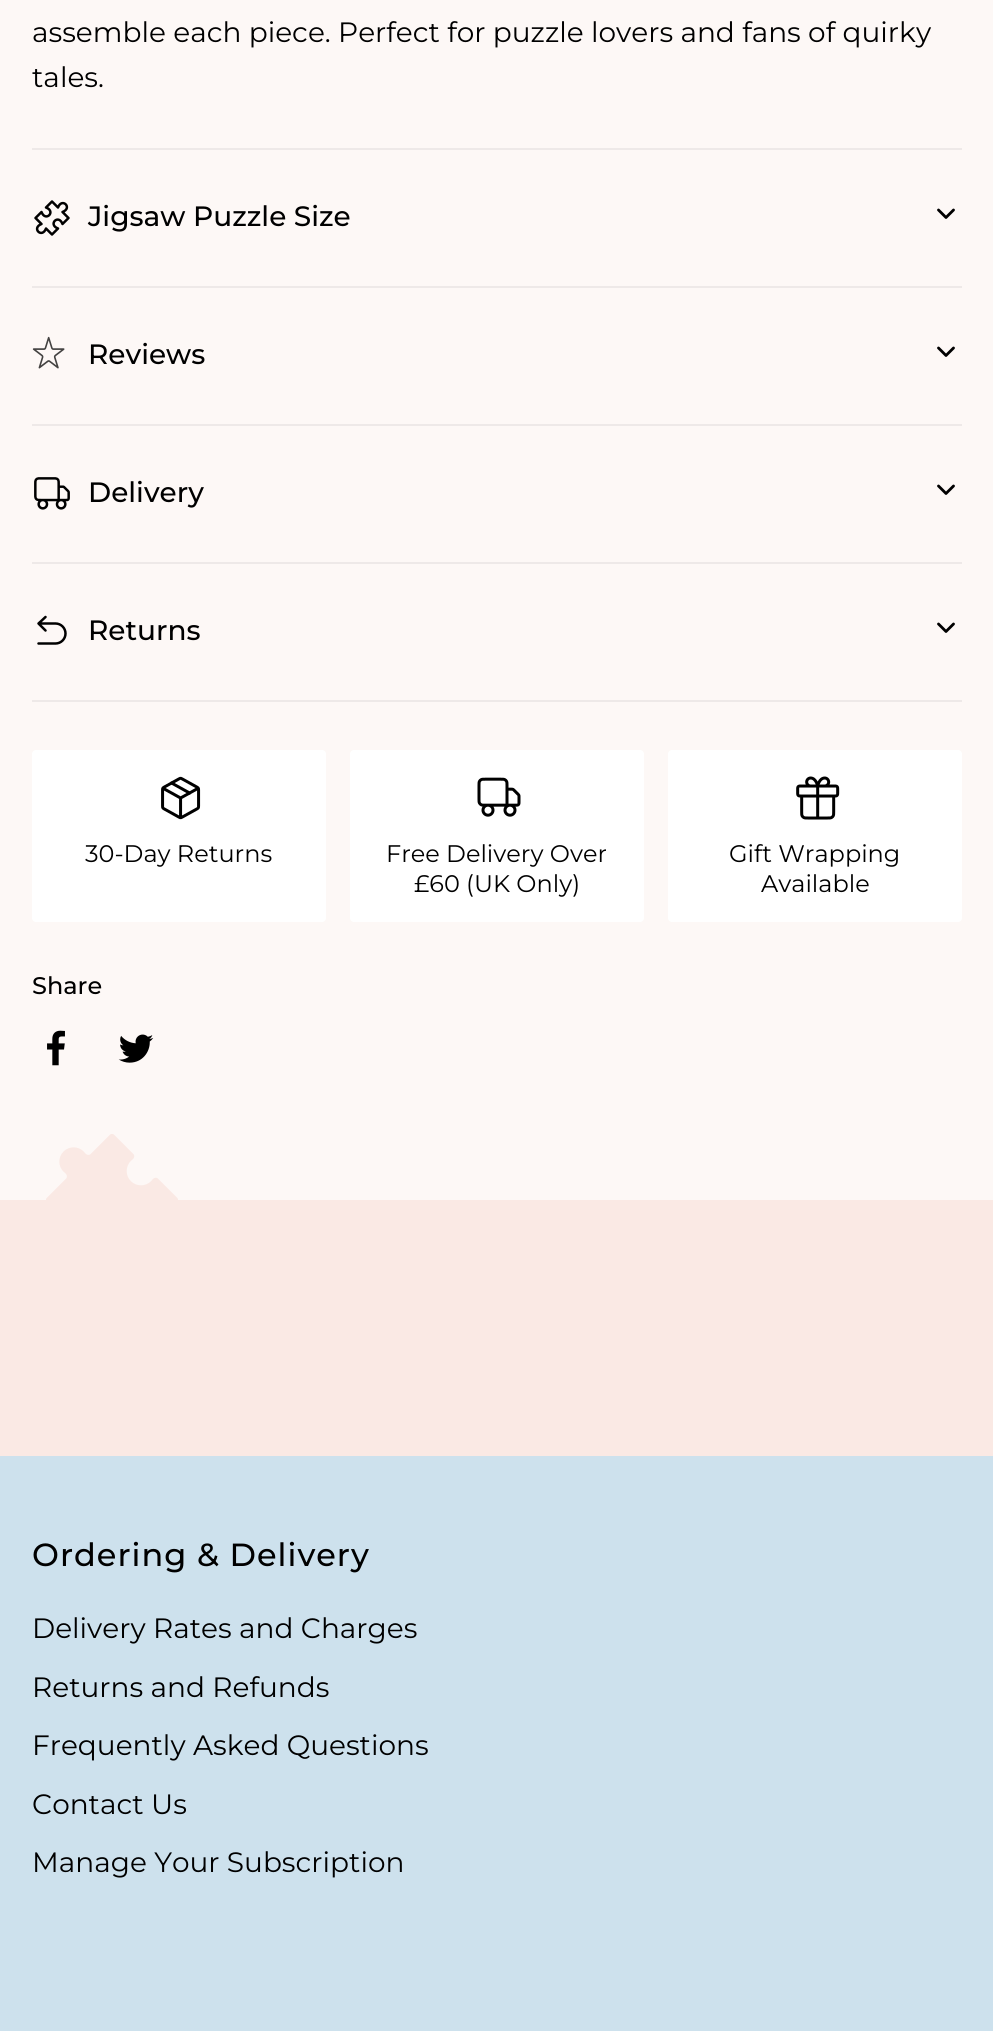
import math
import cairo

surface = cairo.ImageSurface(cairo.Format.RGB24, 993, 2031)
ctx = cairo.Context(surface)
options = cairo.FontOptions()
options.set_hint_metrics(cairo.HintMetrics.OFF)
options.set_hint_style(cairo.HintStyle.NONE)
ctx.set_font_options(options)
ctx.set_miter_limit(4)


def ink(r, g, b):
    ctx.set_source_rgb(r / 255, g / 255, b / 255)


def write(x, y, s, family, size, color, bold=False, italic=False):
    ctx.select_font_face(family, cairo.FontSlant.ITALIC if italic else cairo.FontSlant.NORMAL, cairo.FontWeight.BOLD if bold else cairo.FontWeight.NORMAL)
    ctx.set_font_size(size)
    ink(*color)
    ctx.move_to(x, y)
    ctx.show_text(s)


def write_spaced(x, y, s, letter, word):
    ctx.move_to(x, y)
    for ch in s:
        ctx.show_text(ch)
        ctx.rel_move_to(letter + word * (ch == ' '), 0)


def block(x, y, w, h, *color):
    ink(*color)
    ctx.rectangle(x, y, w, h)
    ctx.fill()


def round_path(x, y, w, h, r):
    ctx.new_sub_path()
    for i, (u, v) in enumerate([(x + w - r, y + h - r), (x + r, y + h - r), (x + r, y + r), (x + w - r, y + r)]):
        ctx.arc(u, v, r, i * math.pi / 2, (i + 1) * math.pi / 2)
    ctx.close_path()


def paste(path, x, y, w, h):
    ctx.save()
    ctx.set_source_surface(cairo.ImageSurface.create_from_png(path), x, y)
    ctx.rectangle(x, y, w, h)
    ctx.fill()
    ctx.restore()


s1 = dict(family="Montserrat", size=28, color=(0, 0, 0))
s2 = dict(family="Montserrat Medium", size=28, color=(0, 0, 0))
s3 = dict(family="Montserrat", size=24, color=(0, 0, 0))
s4 = dict(family="Montserrat Medium", size=24, color=(0, 0, 0))

ink(253, 248, 246)
ctx.paint()
write(32, 42, "assemble each piece. Perfect for puzzle lovers and fans of quirky", **s1)
write(32, 87, "tales.", **s1)
block(32, 148, 930, 2, 238, 233, 232)
block(32, 286, 930, 2, 238, 233, 232)
ctx.new_path()
ctx.move_to(52, 201.5)
ctx.line_to(58, 207.5)
ctx.curve_to(62, 197, 73, 208, 62.5, 212)
ctx.line_to(68.5, 218)
ctx.line_to(62.5, 224)
ctx.curve_to(58.5, 213.5, 47.5, 224.5, 58, 228.5)
ctx.line_to(52, 234.5)
ctx.line_to(46, 228.5)
ctx.curve_to(42, 239, 31, 228, 41.5, 224)
ctx.line_to(35.5, 218)
ctx.line_to(41.5, 212)
ctx.curve_to(45.5, 222.5, 56.5, 211.5, 46, 207.5)
ctx.close_path()
ink(0, 0, 0)
ctx.set_line_width(2.5)
ctx.set_line_cap(cairo.LineCap.ROUND)
ctx.set_line_join(cairo.LineJoin.ROUND)
ctx.stroke()
write(88, 226, "Jigsaw Puzzle Size", **s2)
ctx.new_path()
ctx.move_to(938.5, 210)
ctx.line_to(946, 217.5)
ctx.line_to(953.5, 210)
ctx.set_line_width(2.8)
ctx.stroke()
block(32, 424, 930, 2, 238, 233, 232)
paste("pic1.png", 32, 336, 33, 33)
write(88, 364, "Reviews", **s2)
ctx.new_path()
ctx.move_to(938.5, 348)
ctx.line_to(946, 355.5)
ctx.line_to(953.5, 348)
ctx.stroke()
block(32, 562, 930, 2, 238, 233, 232)
paste("pic2.png", 34, 477, 36, 33)
write(88, 502, "Delivery", **s2)
ctx.new_path()
ctx.move_to(938.5, 486)
ctx.line_to(946, 493.5)
ctx.line_to(953.5, 486)
ctx.stroke()
block(32, 700, 930, 2, 238, 233, 232)
ctx.new_path()
ctx.move_to(38.5, 623.5)
ctx.line_to(55.5, 623.5)
ctx.curve_to(61, 623.5, 65.5, 628, 65.5, 633.5)
ctx.curve_to(65.5, 639, 61, 643.5, 55.5, 643.5)
ctx.line_to(38.5, 643.5)
ctx.move_to(38.5, 623.5)
ctx.line_to(45.5, 617)
ctx.move_to(38.5, 623.5)
ctx.line_to(45.5, 630.5)
ink(0, 0, 0)
ctx.set_line_width(2.5)
ctx.stroke()
write(88, 640, "Returns", **s2)
ctx.new_path()
ctx.move_to(938.5, 624)
ctx.line_to(946, 631.5)
ctx.line_to(953.5, 624)
ctx.set_line_width(2.8)
ctx.stroke()
ink(255, 255, 255)
round_path(32, 750, 294, 172, 4)
ctx.fill()
paste("pic3.png", 161, 776, 40, 44)
write(85, 862, "30-Day Returns", **s3)
ink(255, 255, 255)
round_path(350, 750, 294, 172, 4)
ctx.fill()
paste("pic4.png", 477, 777, 44, 40)
write(386, 862, "Free Delivery Over", **s3)
write(414, 892, "£60 (UK Only)", **s3)
ink(255, 255, 255)
round_path(668, 750, 294, 172, 4)
ctx.fill()
paste("pic5.png", 796, 776, 44, 44)
write(729, 862, "Gift Wrapping", **s3)
write(761, 892, "Available", **s3)
write(32, 994, "Share", **s4)
paste("pic6.png", 47, 1030, 18, 36)
paste("pic7.png", 118, 1034, 36, 29)
block(0, 1200, 993, 256, 250, 233, 228)
paste("pic8.png", 46, 1134, 132, 66)
block(0, 1456, 993, 575, 205, 225, 237)
ctx.set_font_size(32)
ink(0, 0, 0)
write_spaced(32, 1566, "Ordering & Delivery", 1, 0)
write(32, 1638, "Delivery Rates and Charges", **s1)
write(32, 1697, "Returns and Refunds", **s1)
write(32, 1755, "Frequently Asked Questions", **s1)
write(32, 1814, "Contact Us", **s1)
write(32, 1872, "Manage Your Subscription", **s1)
surface.write_to_png("screenshot.png")
